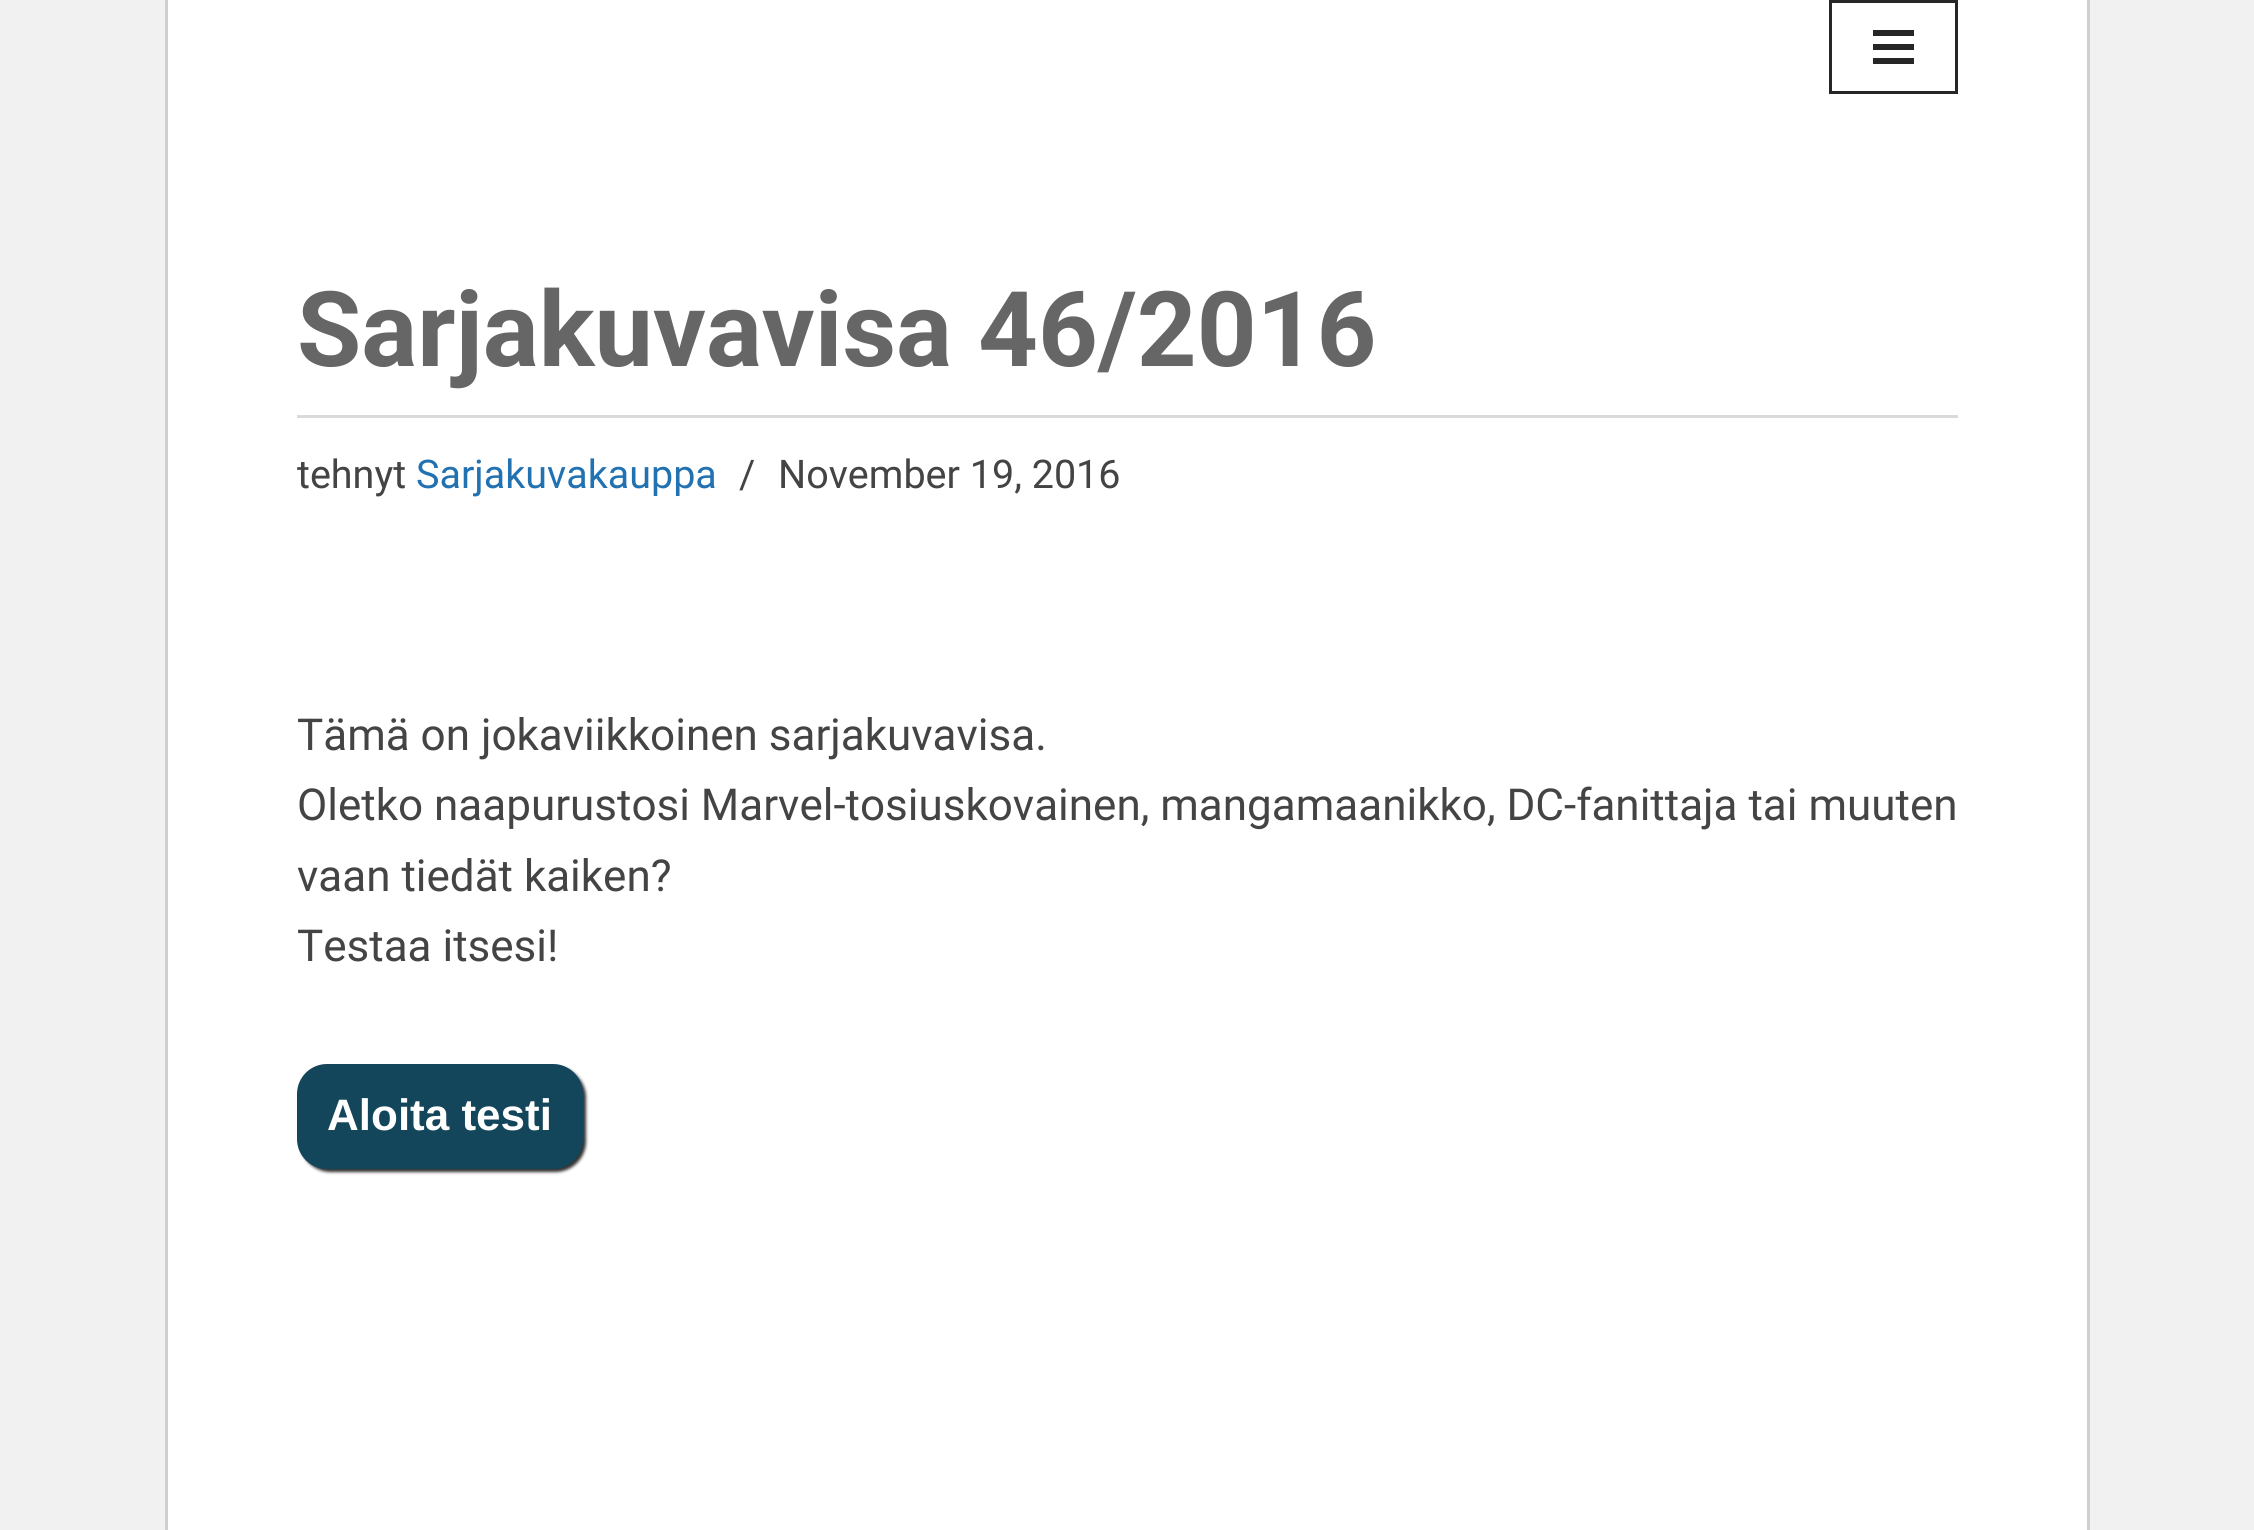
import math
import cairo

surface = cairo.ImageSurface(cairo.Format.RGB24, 2254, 1530)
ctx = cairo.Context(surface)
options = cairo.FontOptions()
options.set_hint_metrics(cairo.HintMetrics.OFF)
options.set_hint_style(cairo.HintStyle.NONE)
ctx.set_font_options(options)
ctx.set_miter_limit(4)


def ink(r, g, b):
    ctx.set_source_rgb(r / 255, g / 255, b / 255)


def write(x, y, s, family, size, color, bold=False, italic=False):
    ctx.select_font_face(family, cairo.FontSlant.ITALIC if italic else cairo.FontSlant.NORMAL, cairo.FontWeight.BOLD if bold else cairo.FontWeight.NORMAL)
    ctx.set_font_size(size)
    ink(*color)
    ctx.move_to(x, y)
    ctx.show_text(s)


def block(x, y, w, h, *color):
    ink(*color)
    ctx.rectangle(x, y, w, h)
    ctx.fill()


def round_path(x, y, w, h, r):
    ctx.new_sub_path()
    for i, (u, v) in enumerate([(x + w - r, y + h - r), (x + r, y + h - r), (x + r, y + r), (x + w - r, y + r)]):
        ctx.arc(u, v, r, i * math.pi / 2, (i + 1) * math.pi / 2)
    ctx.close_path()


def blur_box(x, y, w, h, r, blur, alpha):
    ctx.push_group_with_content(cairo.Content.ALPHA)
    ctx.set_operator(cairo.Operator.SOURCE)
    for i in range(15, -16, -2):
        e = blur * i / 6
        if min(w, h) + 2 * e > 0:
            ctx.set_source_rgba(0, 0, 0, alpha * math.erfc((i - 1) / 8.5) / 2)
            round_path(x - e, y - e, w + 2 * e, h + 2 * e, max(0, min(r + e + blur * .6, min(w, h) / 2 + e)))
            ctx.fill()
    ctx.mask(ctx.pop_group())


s1 = dict(family="Roboto", size=104.5, color=(102, 102, 102), bold=True)
s2 = dict(family="Roboto", size=39.5, color=(68, 68, 68))
s3 = dict(family="Roboto", size=39.5, color=(34, 113, 177))
s4 = dict(family="Roboto", size=44, color=(68, 68, 68))
s5 = dict(family="Liberation Sans", size=44, color=(255, 255, 255), bold=True)

ink(241, 241, 241)
ctx.paint()
ink(255, 255, 255)
ctx.rectangle(166.5, -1.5, 1922, 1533)
ctx.fill_preserve()
ink(204, 208, 212)
ctx.set_line_width(3)
ctx.stroke()
ctx.rectangle(1830.5, 1.5, 126, 91)
ink(39, 38, 38)
ctx.stroke()
block(1873, 30, 41, 6, 39, 38, 38)
block(1873, 44, 41, 6, 39, 38, 38)
block(1873, 58, 41, 6, 39, 38, 38)
block(297, 415, 1661, 3, 218, 218, 218)
write(297, 366, "Sarjakuvavisa 46/2016", **s1)
write(297, 488, "tehnyt", **s2)
write(416, 488, "Sarjakuvakauppa", **s3)
write(739, 488, "/", **s2)
write(778, 488, "November 19, 2016", **s2)
write(297, 750, "Tämä on jokaviikkoinen sarjakuvavisa.", **s4)
write(297, 820, "Oletko naapurustosi Marvel-tosiuskovainen, mangamaanikko, DC-fanittaja tai muuten", **s4)
write(297, 891, "vaan tiedät kaiken?", **s4)
write(297, 961, "Testaa itsesi!", **s4)
ink(51, 51, 51)
blur_box(300, 1067, 286, 105, 30, 1.5, 1)
ink(19, 69, 91)
round_path(298.5, 1065.5, 283, 102, 28.5)
ctx.fill_preserve()
ctx.stroke()
write(327, 1130, "Aloita testi", **s5)
surface.write_to_png("screenshot.png")
